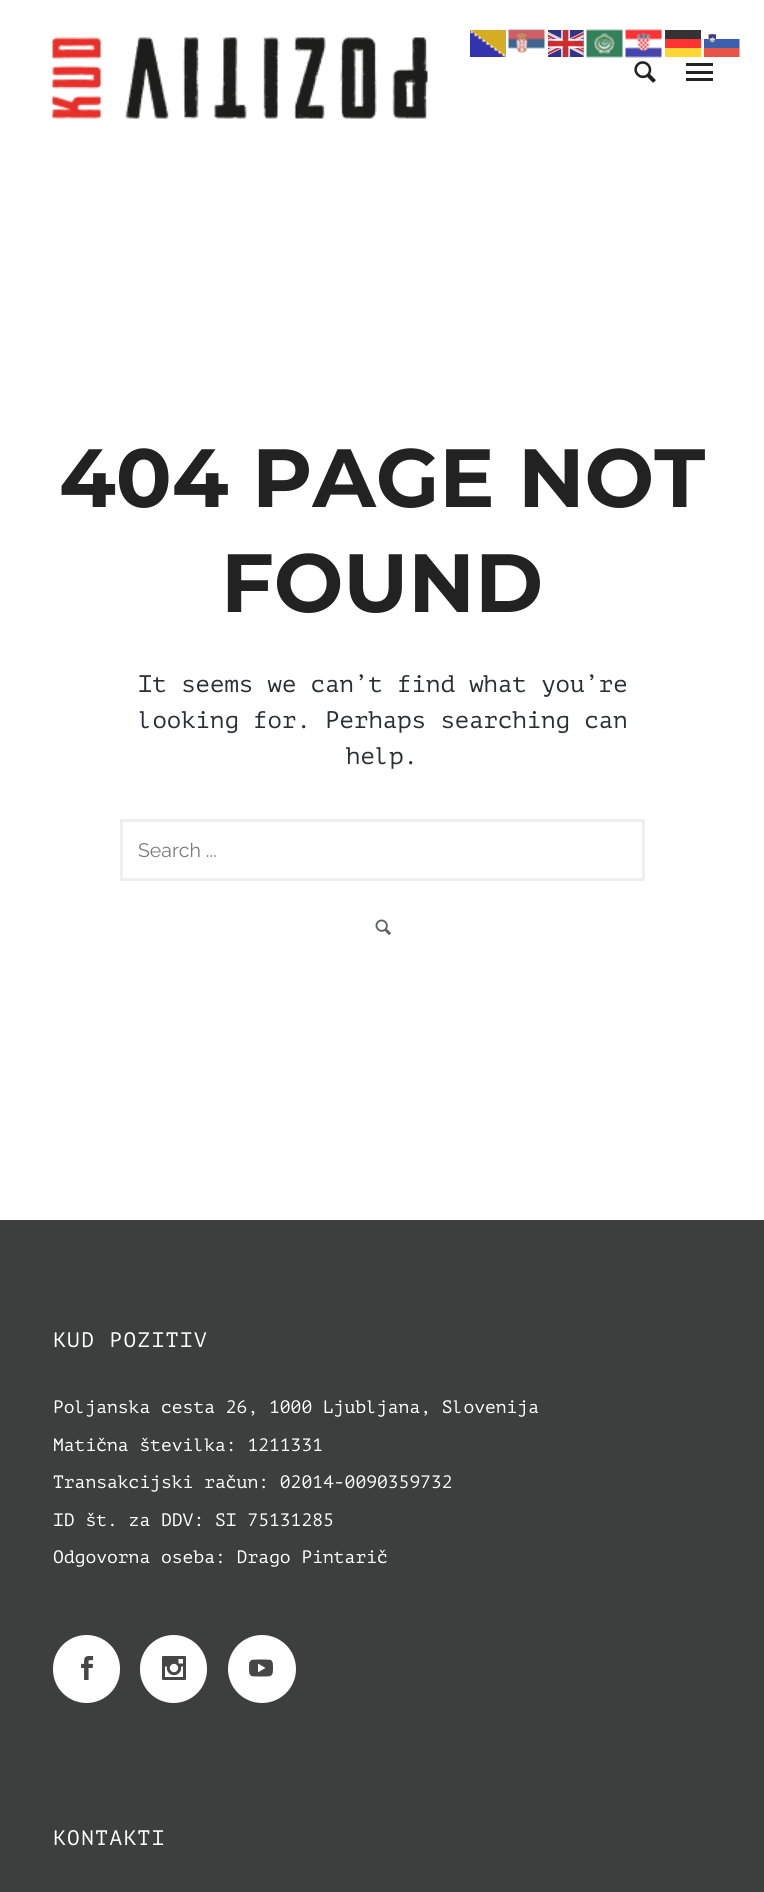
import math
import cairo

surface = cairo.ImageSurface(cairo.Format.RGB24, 764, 1892)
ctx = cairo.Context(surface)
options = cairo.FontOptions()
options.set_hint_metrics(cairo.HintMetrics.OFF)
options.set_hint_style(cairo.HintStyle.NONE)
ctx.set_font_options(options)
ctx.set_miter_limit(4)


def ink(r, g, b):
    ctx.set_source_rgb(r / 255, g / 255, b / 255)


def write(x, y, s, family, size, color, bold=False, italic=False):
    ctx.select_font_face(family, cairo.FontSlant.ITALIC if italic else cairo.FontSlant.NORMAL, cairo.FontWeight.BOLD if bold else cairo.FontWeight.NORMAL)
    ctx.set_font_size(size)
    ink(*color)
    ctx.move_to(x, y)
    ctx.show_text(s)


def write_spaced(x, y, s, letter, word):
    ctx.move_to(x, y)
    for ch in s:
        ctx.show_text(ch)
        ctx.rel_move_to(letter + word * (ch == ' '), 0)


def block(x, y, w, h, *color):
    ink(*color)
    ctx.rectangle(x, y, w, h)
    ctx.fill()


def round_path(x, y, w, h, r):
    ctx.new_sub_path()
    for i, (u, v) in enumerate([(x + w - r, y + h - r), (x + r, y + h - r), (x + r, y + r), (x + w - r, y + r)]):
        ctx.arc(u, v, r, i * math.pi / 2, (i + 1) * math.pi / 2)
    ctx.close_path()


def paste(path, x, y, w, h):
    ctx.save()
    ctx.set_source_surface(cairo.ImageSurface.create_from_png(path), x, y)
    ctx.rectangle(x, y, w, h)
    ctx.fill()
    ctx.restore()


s1 = dict(family="Montserrat", size=82.5, color=(34, 34, 34), bold=True)
s2 = dict(family="PT Mono", size=24, color=(40, 48, 53))
s3 = dict(family="Raleway Thin", size=19.5, color=(122, 122, 122))
s4 = dict(family="PT Mono", size=18, color=(255, 255, 255))

ink(255, 255, 255)
ctx.paint()
paste("pic1.png", 470, 30, 36, 27)
paste("pic2.png", 508, 29, 37, 24)
paste("pic3.png", 548, 30, 36, 27)
paste("pic4.png", 586, 29, 37, 29)
paste("pic5.png", 625, 29, 37, 29)
block(665, 30, 36, 9, 51, 51, 51)
paste("pic6.png", 704, 34, 36, 23)
block(665, 39, 36, 9, 255, 51, 51)
block(665, 48, 36, 9, 255, 214, 51)
paste("pic7.png", 52, 37, 376, 82)
paste("pic8.png", 634, 61, 22, 22)
block(686, 63, 27, 3, 35, 35, 35)
block(686, 71, 27, 3, 35, 35, 35)
block(686, 78, 27, 3, 35, 35, 35)
write(59, 507, "404 PAGE NOT", **s1)
write(221, 612, "FOUND", **s1)
write(138, 692, "It seems we can’t find what you’re", **s2)
write(138, 728, "looking for. Perhaps searching can", **s2)
write(346, 764, "help.", **s2)
ctx.rectangle(121.5, 820.5, 522, 59)
ink(238, 238, 238)
ctx.set_line_width(3)
ctx.stroke()
write(138, 857, "Search ...", **s3)
paste("pic9.png", 375, 919, 16, 16)
block(0, 1220, 764, 672, 61, 63, 62)
ctx.select_font_face("PT Mono")
ctx.set_font_size(21)
ink(255, 255, 255)
write_spaced(53, 1347, "KUD POZITIV", 1.5, 0)
write(53, 1413, "Poljanska cesta 26, 1000 Ljubljana, Slovenija", **s4)
write(53, 1451, "Matična številka: 1211331", **s4)
write(53, 1488, "Transakcijski račun: 02014-0090359732", **s4)
write(53, 1526, "ID št. za DDV: SI 75131285", **s4)
write(53, 1563, "Odgovorna oseba: Drago Pintarič", **s4)
round_path(53, 1635, 67, 68, 33.5)
ctx.fill()
paste("pic10.png", 81, 1656, 13, 24)
round_path(140, 1635, 67, 68, 33.5)
ctx.fill()
paste("pic11.png", 162, 1656, 24, 24)
ctx.arc(262, 1669, 34, 0, 2 * math.pi)
ctx.fill()
paste("pic12.png", 249, 1659, 24, 18)
ctx.set_font_size(21)
write_spaced(53, 1845, "KONTAKTI", 1.5, 0)
surface.write_to_png("screenshot.png")
